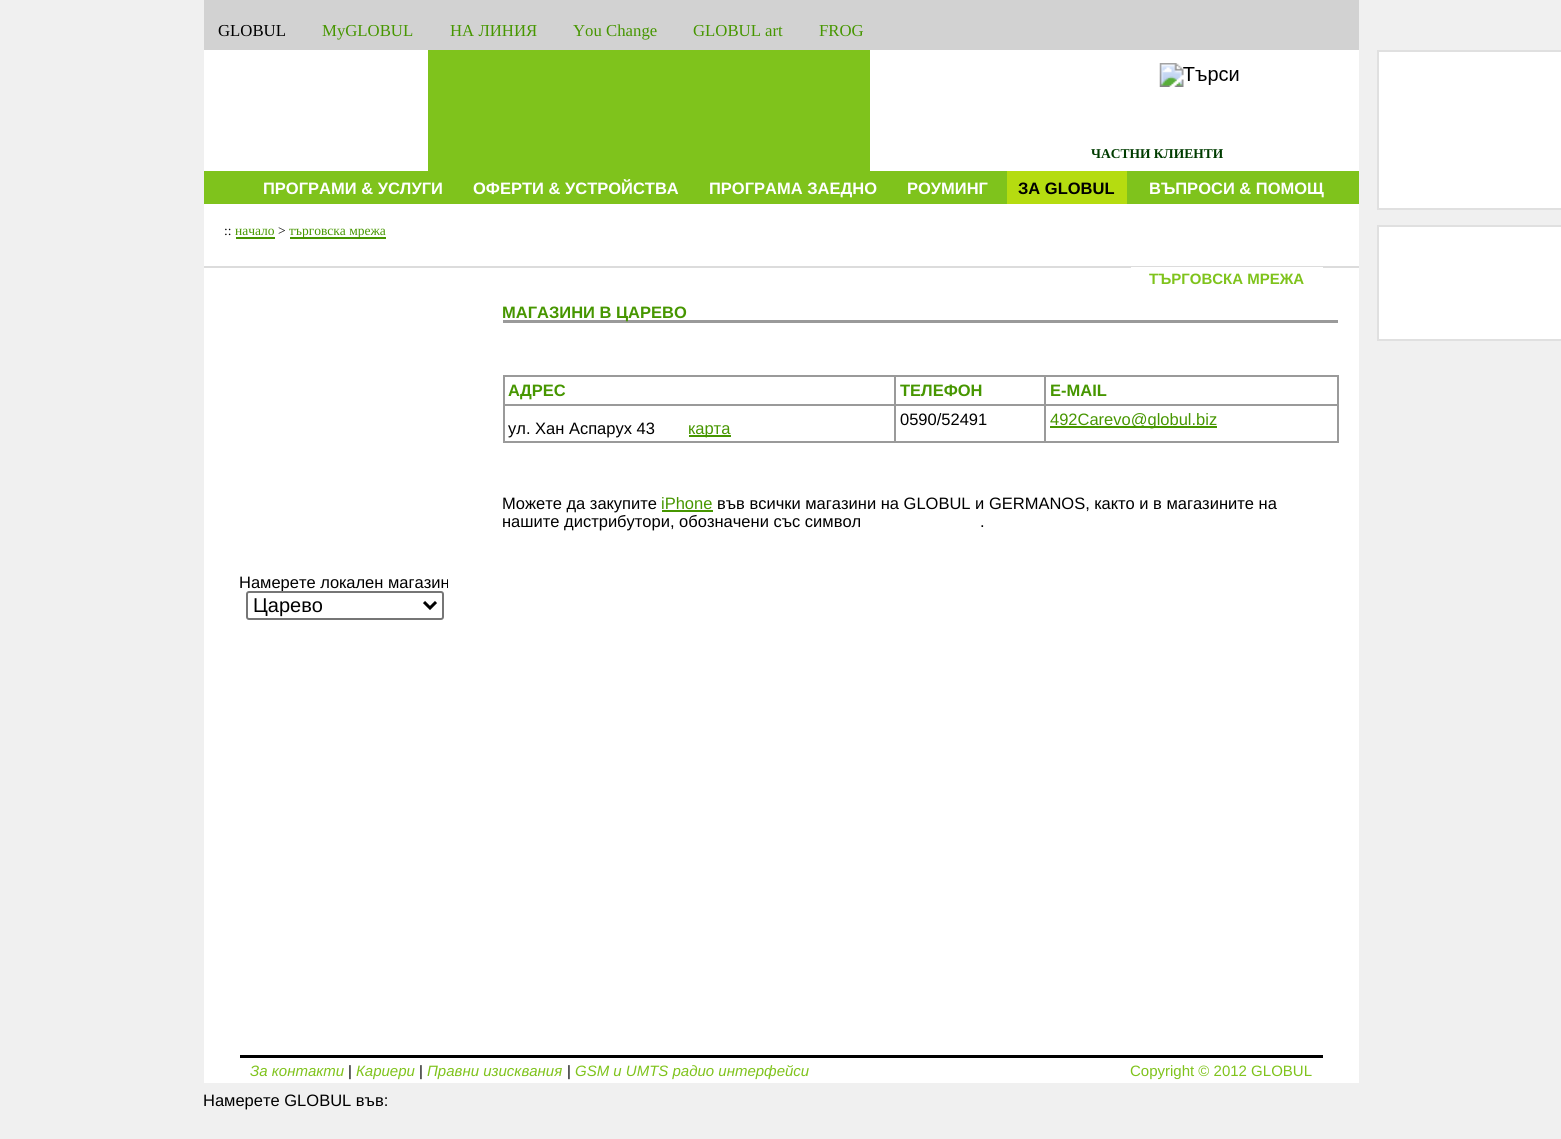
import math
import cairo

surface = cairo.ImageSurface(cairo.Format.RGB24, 1561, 1139)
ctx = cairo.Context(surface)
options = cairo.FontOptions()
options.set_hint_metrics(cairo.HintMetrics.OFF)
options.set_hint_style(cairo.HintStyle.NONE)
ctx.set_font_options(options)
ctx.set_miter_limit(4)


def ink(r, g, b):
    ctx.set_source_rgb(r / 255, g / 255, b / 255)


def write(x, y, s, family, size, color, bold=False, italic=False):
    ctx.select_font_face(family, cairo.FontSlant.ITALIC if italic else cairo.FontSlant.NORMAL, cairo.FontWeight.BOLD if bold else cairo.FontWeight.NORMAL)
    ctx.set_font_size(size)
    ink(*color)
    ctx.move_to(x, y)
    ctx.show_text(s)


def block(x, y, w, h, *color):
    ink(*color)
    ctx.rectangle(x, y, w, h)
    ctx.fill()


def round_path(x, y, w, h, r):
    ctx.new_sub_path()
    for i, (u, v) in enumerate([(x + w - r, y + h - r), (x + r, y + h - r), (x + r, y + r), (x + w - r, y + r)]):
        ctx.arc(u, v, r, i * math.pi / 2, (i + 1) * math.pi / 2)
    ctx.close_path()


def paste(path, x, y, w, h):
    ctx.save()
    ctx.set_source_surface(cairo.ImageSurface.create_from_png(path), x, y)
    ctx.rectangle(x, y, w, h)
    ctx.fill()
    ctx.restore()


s1 = dict(family="Liberation Serif", size=16.75, color=(0, 0, 0))
s2 = dict(family="Liberation Serif", size=16.75, color=(70, 150, 0))
s3 = dict(family="Liberation Serif", size=13.5, color=(0, 60, 0), bold=True)
s4 = dict(family="Liberation Sans", size=16.5, color=(255, 255, 255), bold=True)
s5 = dict(family="Liberation Sans", size=16.5, color=(0, 0, 0), bold=True)
s6 = dict(family="Liberation Serif", size=13.5, color=(0, 0, 0))
s7 = dict(family="Liberation Serif", size=13.5, color=(70, 150, 0))
s8 = dict(family="Liberation Sans", size=15, color=(127, 195, 28), bold=True)
s9 = dict(family="Liberation Sans", size=16.5, color=(70, 150, 0), bold=True)
s10 = dict(family="Liberation Sans", size=16.5, color=(0, 0, 0))
s11 = dict(family="Liberation Sans", size=16.5, color=(70, 150, 0))
s12 = dict(family="Liberation Sans", size=20, color=(0, 0, 0))
s13 = dict(family="Liberation Sans", size=15, color=(127, 195, 28), italic=True)
s14 = dict(family="Liberation Sans", size=15, color=(0, 0, 0))
s15 = dict(family="Liberation Sans", size=15, color=(127, 195, 28))

ink(240, 240, 240)
ctx.paint()
block(204, 50, 1155, 1033, 255, 255, 255)
block(204, 0, 1155, 50, 210, 210, 210)
write(218, 36, "GLOBUL", **s1)
write(322, 36, "MyGLOBUL", **s2)
write(450, 36, "НА ЛИНИЯ", **s2)
write(573, 36, "You Change", **s2)
write(693, 36, "GLOBUL art", **s2)
write(819, 36, "FROG", **s2)
block(428, 50, 442, 121, 127, 195, 28)
paste("pic1.png", 1159, 63, 80, 24)
write(1091, 158, "ЧАСТНИ КЛИЕНТИ", **s3)
block(204, 171, 1155, 33, 127, 195, 28)
write(263, 194, "ПРОГРАМИ & УСЛУГИ", **s4)
write(473, 194, "ОФЕРТИ & УСТРОЙСТВА", **s4)
write(709, 194, "ПРОГРАМА ЗАЕДНО", **s4)
write(907, 194, "РОУМИНГ", **s4)
block(1007, 171, 120, 33, 181, 220, 16)
write(1018, 194, "ЗА GLOBUL", **s5)
write(1149, 194, "ВЪПРОСИ & ПОМОЩ", **s4)
write(224, 235, "::", **s6)
write(235, 235, "начало", **s7)
block(236, 237, 39, 2, 70, 150, 0)
write(278, 235, ">", **s6)
block(290, 237, 96, 2, 70, 150, 0)
write(289, 235, "търговска мрежа", **s7)
block(204, 266, 1155, 2, 220, 220, 220)
block(1131, 267, 192, 1, 255, 255, 255)
write(1149, 284, "ТЪРГОВСКА МРЕЖА", **s8)
block(503, 320, 835, 3, 154, 154, 154)
write(502, 318, "МАГАЗИНИ В ЦАРЕВО", **s9)
block(503, 375, 835, 2, 154, 154, 154)
block(1337, 375, 2, 68, 154, 154, 154)
block(503, 441, 835, 2, 154, 154, 154)
block(503, 375, 2, 68, 154, 154, 154)
write(508, 396, "АДРЕС", **s9)
block(1044, 404, 294, 2, 154, 154, 154)
block(1044, 404, 2, 39, 154, 154, 154)
block(894, 404, 152, 2, 154, 154, 154)
block(894, 404, 2, 39, 154, 154, 154)
block(503, 404, 393, 2, 154, 154, 154)
block(894, 375, 2, 30, 154, 154, 154)
write(900, 396, "ТЕЛЕФОН", **s9)
block(1044, 375, 2, 30, 154, 154, 154)
write(1050, 396, "E-MAIL", **s9)
write(508, 434, "ул. Хан Аспарух 43", **s10)
block(689, 435, 42, 2, 70, 150, 0)
write(688, 434, "карта", **s11)
write(900, 425, "0590/52491", **s10)
block(1050, 426, 167, 2, 70, 150, 0)
write(1050, 425, "492Carevo@globul.biz", **s11)
write(502, 509, "Можете да закупите", **s10)
write(661, 509, "iPhone", **s11)
block(662, 510, 51, 2, 70, 150, 0)
write(717, 509, "във всички магазини на GLOBUL и GERMANOS, както и в магазините на", **s10)
write(502, 527, "нашите дистрибутори, обозначени със символ", **s10)
write(980, 527, ".", **s10)
write(239, 588, "Намерете локален магазин", **s10)
ink(255, 255, 255)
round_path(247, 592, 196, 27, 2)
ctx.fill_preserve()
ink(118, 118, 118)
ctx.stroke()
ctx.new_path()
ctx.move_to(424, 602)
ctx.line_to(430, 608)
ctx.line_to(436, 602)
ink(0, 0, 0)
ctx.set_line_width(3)
ctx.stroke()
write(253, 612, "Царево", **s12)
block(240, 1055, 1083, 3, 0, 0, 0)
write(250, 1076, "За контакти", **s13)
write(348, 1076, "|", **s14)
write(356, 1076, "Кариери", **s13)
write(419, 1076, "|", **s14)
write(427, 1076, "Правни изисквания", **s13)
write(567, 1076, "|", **s14)
write(575, 1076, "GSM и UMTS радио интерфейси", **s13)
write(1130, 1076, "Copyright © 2012 GLOBUL", **s15)
ink(255, 255, 255)
ctx.rectangle(1378, 51, 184, 158)
ctx.fill_preserve()
ink(224, 224, 224)
ctx.set_line_width(2)
ctx.stroke()
ink(255, 255, 255)
ctx.rectangle(1378, 226, 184, 114)
ctx.fill_preserve()
ink(224, 224, 224)
ctx.stroke()
write(203, 1106, "Намерете GLOBUL във:", **s10)
surface.write_to_png("screenshot.png")
